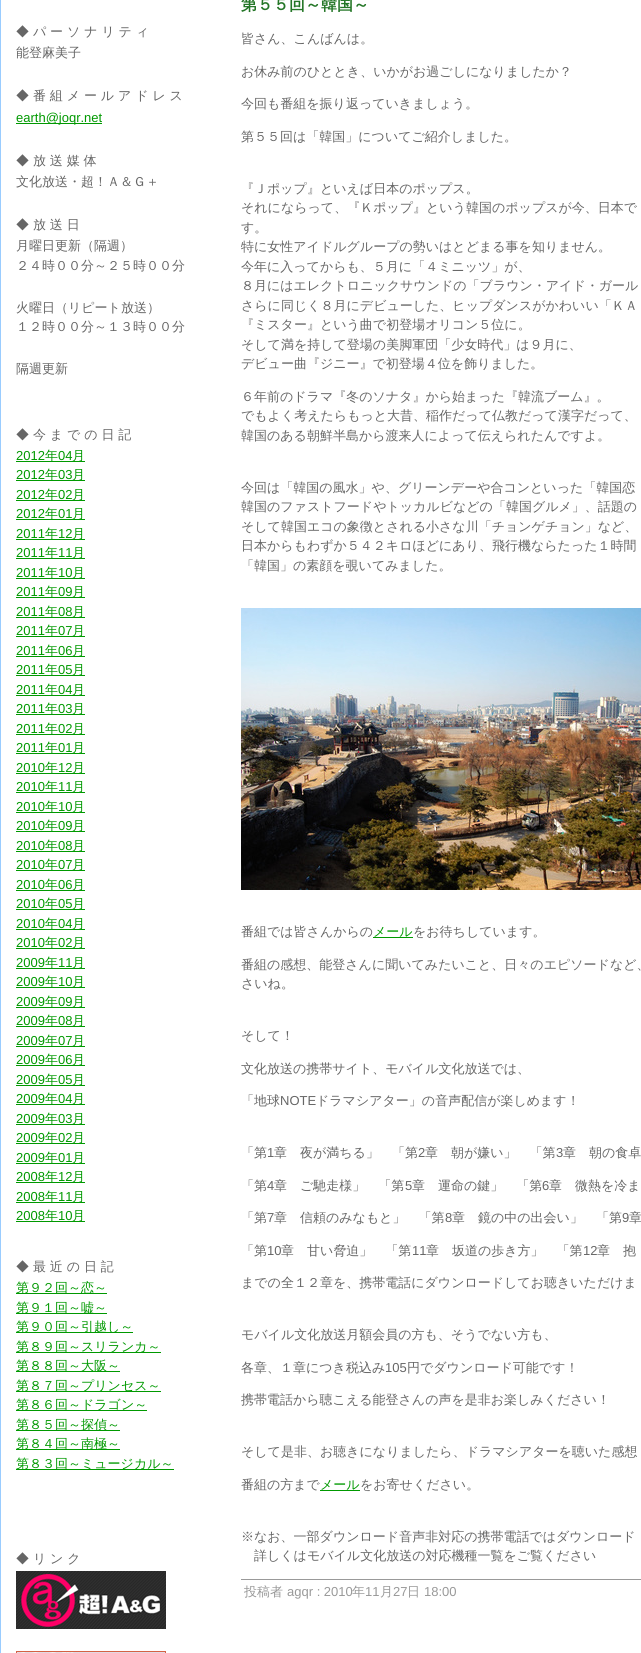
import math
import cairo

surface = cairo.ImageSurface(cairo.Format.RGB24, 641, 1653)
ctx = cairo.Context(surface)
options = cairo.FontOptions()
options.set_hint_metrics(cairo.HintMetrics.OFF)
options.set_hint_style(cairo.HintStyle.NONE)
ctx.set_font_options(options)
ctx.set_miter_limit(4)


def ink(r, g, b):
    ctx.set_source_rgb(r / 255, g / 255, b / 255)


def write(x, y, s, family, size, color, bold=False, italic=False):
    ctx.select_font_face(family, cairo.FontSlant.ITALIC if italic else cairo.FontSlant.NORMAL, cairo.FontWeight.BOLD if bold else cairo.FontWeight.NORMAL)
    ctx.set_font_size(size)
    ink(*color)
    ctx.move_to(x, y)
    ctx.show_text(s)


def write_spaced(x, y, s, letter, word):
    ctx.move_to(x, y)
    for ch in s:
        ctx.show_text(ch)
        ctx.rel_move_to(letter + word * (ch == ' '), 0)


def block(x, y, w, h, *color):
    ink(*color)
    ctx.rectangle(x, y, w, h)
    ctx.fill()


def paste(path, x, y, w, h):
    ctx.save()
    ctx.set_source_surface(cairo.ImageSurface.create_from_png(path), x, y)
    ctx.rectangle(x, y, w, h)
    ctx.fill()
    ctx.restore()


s1 = dict(family="WenQuanYi Zen Hei Medium", size=13, color=(102, 102, 102))
s2 = dict(family="Liberation Sans", size=13, color=(0, 153, 0))
s3 = dict(family="WenQuanYi Zen Hei Medium", size=13, color=(0, 153, 0))
s4 = dict(family="WenQuanYi Zen Hei", size=16, color=(36, 118, 39), bold=True)
s5 = dict(family="Liberation Sans", size=13, color=(102, 102, 102))
s6 = dict(family="WenQuanYi Zen Hei Medium", size=13, color=(153, 153, 153))
s7 = dict(family="Liberation Sans", size=13, color=(153, 153, 153))

ink(255, 255, 255)
ctx.paint()
ctx.rectangle(0.5, -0.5, 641, 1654)
ink(153, 204, 255)
ctx.set_line_width(1)
ctx.stroke()
ctx.select_font_face("WenQuanYi Zen Hei Medium")
ctx.set_font_size(13)
ink(102, 102, 102)
write_spaced(16, 36, "◆パーソナリティ", 3.9, 0)
write(16, 57, "能登麻美子", **s1)
write_spaced(16, 100, "◆番組メールアドレス", 3.9, 0)
block(16, 123, 86, 1, 0, 153, 0)
write(16, 122, "earth@joqr.net", **s2)
ctx.select_font_face("WenQuanYi Zen Hei Medium")
ink(102, 102, 102)
write_spaced(16, 165, "◆放送媒体", 3.9, 0)
write(16, 186, "文化放送・超！Ａ＆Ｇ＋", **s1)
write_spaced(16, 229, "◆放送日", 3.9, 0)
write(16, 250, "月曜日更新（隔週）", **s1)
write(16, 270, "２４時００分～２５時００分", **s1)
write(16, 312, "火曜日（リピート放送）", **s1)
write(16, 331, "１２時００分～１３時００分", **s1)
write(16, 373, "隔週更新", **s1)
write_spaced(16, 439, "◆今までの日記", 3.9, 0)
write(16, 460, "2012", **s2)
block(16, 461, 69, 1, 0, 153, 0)
write(45, 460, "年", **s3)
write(58, 460, "04", **s2)
write(72, 460, "月", **s3)
write(16, 479, "2012", **s2)
block(16, 480, 69, 1, 0, 153, 0)
write(45, 479, "年", **s3)
write(58, 479, "03", **s2)
write(72, 479, "月", **s3)
write(16, 499, "2012", **s2)
block(16, 500, 69, 1, 0, 153, 0)
write(45, 499, "年", **s3)
write(58, 499, "02", **s2)
write(72, 499, "月", **s3)
write(16, 518, "2012", **s2)
block(16, 519, 69, 1, 0, 153, 0)
write(45, 518, "年", **s3)
write(58, 518, "01", **s2)
write(72, 518, "月", **s3)
write(16, 538, "2011", **s2)
block(16, 539, 69, 1, 0, 153, 0)
write(45, 538, "年", **s3)
write(58, 538, "12", **s2)
write(72, 538, "月", **s3)
write(16, 557, "2011", **s2)
block(16, 558, 69, 1, 0, 153, 0)
write(45, 557, "年", **s3)
write(58, 557, "11", **s2)
write(72, 557, "月", **s3)
write(16, 577, "2011", **s2)
block(16, 578, 69, 1, 0, 153, 0)
write(45, 577, "年", **s3)
write(58, 577, "10", **s2)
write(72, 577, "月", **s3)
write(16, 596, "2011", **s2)
block(16, 597, 69, 1, 0, 153, 0)
write(45, 596, "年", **s3)
write(58, 596, "09", **s2)
write(72, 596, "月", **s3)
write(16, 616, "2011", **s2)
block(16, 617, 69, 1, 0, 153, 0)
write(45, 616, "年", **s3)
write(58, 616, "08", **s2)
write(72, 616, "月", **s3)
write(16, 635, "2011", **s2)
block(16, 636, 69, 1, 0, 153, 0)
write(45, 635, "年", **s3)
write(58, 635, "07", **s2)
write(72, 635, "月", **s3)
write(16, 655, "2011", **s2)
block(16, 656, 69, 1, 0, 153, 0)
write(45, 655, "年", **s3)
write(58, 655, "06", **s2)
write(72, 655, "月", **s3)
write(16, 674, "2011", **s2)
block(16, 675, 69, 1, 0, 153, 0)
write(45, 674, "年", **s3)
write(58, 674, "05", **s2)
write(72, 674, "月", **s3)
write(16, 694, "2011", **s2)
block(16, 695, 69, 1, 0, 153, 0)
write(45, 694, "年", **s3)
write(58, 694, "04", **s2)
write(72, 694, "月", **s3)
write(16, 713, "2011", **s2)
block(16, 714, 69, 1, 0, 153, 0)
write(45, 713, "年", **s3)
write(58, 713, "03", **s2)
write(72, 713, "月", **s3)
write(16, 733, "2011", **s2)
block(16, 734, 69, 1, 0, 153, 0)
write(45, 733, "年", **s3)
write(58, 733, "02", **s2)
write(72, 733, "月", **s3)
write(16, 752, "2011", **s2)
block(16, 753, 69, 1, 0, 153, 0)
write(45, 752, "年", **s3)
write(58, 752, "01", **s2)
write(72, 752, "月", **s3)
write(16, 772, "2010", **s2)
block(16, 773, 69, 1, 0, 153, 0)
write(45, 772, "年", **s3)
write(58, 772, "12", **s2)
write(72, 772, "月", **s3)
write(16, 791, "2010", **s2)
block(16, 792, 69, 1, 0, 153, 0)
write(45, 791, "年", **s3)
write(58, 791, "11", **s2)
write(72, 791, "月", **s3)
write(16, 811, "2010", **s2)
block(16, 812, 69, 1, 0, 153, 0)
write(45, 811, "年", **s3)
write(58, 811, "10", **s2)
write(72, 811, "月", **s3)
write(16, 830, "2010", **s2)
block(16, 831, 69, 1, 0, 153, 0)
write(45, 830, "年", **s3)
write(58, 830, "09", **s2)
write(72, 830, "月", **s3)
write(16, 850, "2010", **s2)
block(16, 851, 69, 1, 0, 153, 0)
write(45, 850, "年", **s3)
write(58, 850, "08", **s2)
write(72, 850, "月", **s3)
write(16, 869, "2010", **s2)
block(16, 870, 69, 1, 0, 153, 0)
write(45, 869, "年", **s3)
write(58, 869, "07", **s2)
write(72, 869, "月", **s3)
write(16, 889, "2010", **s2)
block(16, 890, 69, 1, 0, 153, 0)
write(45, 889, "年", **s3)
write(58, 889, "06", **s2)
write(72, 889, "月", **s3)
write(16, 908, "2010", **s2)
block(16, 909, 69, 1, 0, 153, 0)
write(45, 908, "年", **s3)
write(58, 908, "05", **s2)
write(72, 908, "月", **s3)
write(16, 928, "2010", **s2)
block(16, 929, 69, 1, 0, 153, 0)
write(45, 928, "年", **s3)
write(58, 928, "04", **s2)
write(72, 928, "月", **s3)
write(16, 947, "2010", **s2)
block(16, 948, 69, 1, 0, 153, 0)
write(45, 947, "年", **s3)
write(58, 947, "02", **s2)
write(72, 947, "月", **s3)
write(16, 967, "2009", **s2)
block(16, 968, 69, 1, 0, 153, 0)
write(45, 967, "年", **s3)
write(58, 967, "11", **s2)
write(72, 967, "月", **s3)
write(16, 986, "2009", **s2)
block(16, 987, 69, 1, 0, 153, 0)
write(45, 986, "年", **s3)
write(58, 986, "10", **s2)
write(72, 986, "月", **s3)
write(16, 1006, "2009", **s2)
block(16, 1007, 69, 1, 0, 153, 0)
write(45, 1006, "年", **s3)
write(58, 1006, "09", **s2)
write(72, 1006, "月", **s3)
write(16, 1025, "2009", **s2)
block(16, 1026, 69, 1, 0, 153, 0)
write(45, 1025, "年", **s3)
write(58, 1025, "08", **s2)
write(72, 1025, "月", **s3)
write(16, 1045, "2009", **s2)
block(16, 1046, 69, 1, 0, 153, 0)
write(45, 1045, "年", **s3)
write(58, 1045, "07", **s2)
write(72, 1045, "月", **s3)
write(16, 1064, "2009", **s2)
block(16, 1065, 69, 1, 0, 153, 0)
write(45, 1064, "年", **s3)
write(58, 1064, "06", **s2)
write(72, 1064, "月", **s3)
write(16, 1084, "2009", **s2)
block(16, 1085, 69, 1, 0, 153, 0)
write(45, 1084, "年", **s3)
write(58, 1084, "05", **s2)
write(72, 1084, "月", **s3)
write(16, 1103, "2009", **s2)
block(16, 1104, 69, 1, 0, 153, 0)
write(45, 1103, "年", **s3)
write(58, 1103, "04", **s2)
write(72, 1103, "月", **s3)
write(16, 1123, "2009", **s2)
block(16, 1124, 69, 1, 0, 153, 0)
write(45, 1123, "年", **s3)
write(58, 1123, "03", **s2)
write(72, 1123, "月", **s3)
write(16, 1142, "2009", **s2)
block(16, 1143, 69, 1, 0, 153, 0)
write(45, 1142, "年", **s3)
write(58, 1142, "02", **s2)
write(72, 1142, "月", **s3)
write(16, 1162, "2009", **s2)
block(16, 1163, 69, 1, 0, 153, 0)
write(45, 1162, "年", **s3)
write(58, 1162, "01", **s2)
write(72, 1162, "月", **s3)
write(16, 1181, "2008", **s2)
block(16, 1182, 69, 1, 0, 153, 0)
write(45, 1181, "年", **s3)
write(58, 1181, "12", **s2)
write(72, 1181, "月", **s3)
write(16, 1201, "2008", **s2)
block(16, 1202, 69, 1, 0, 153, 0)
write(45, 1201, "年", **s3)
write(58, 1201, "11", **s2)
write(72, 1201, "月", **s3)
write(16, 1220, "2008", **s2)
block(16, 1221, 69, 1, 0, 153, 0)
write(45, 1220, "年", **s3)
write(58, 1220, "10", **s2)
write(72, 1220, "月", **s3)
ink(102, 102, 102)
write_spaced(16, 1271, "◆最近の日記", 3.9, 0)
block(16, 1293, 91, 1, 0, 153, 0)
write(16, 1292, "第９２回～恋～", **s3)
block(16, 1313, 91, 1, 0, 153, 0)
write(16, 1312, "第９１回～嘘～", **s3)
block(16, 1332, 117, 1, 0, 153, 0)
write(16, 1331, "第９０回～引越し～", **s3)
block(16, 1352, 145, 1, 0, 153, 0)
write(16, 1351, "第８９回～スリランカ～", **s3)
block(16, 1371, 104, 1, 0, 153, 0)
write(16, 1370, "第８８回～大阪～", **s3)
block(16, 1391, 145, 1, 0, 153, 0)
write(16, 1390, "第８７回～プリンセス～", **s3)
block(16, 1410, 131, 1, 0, 153, 0)
write(16, 1409, "第８６回～ドラゴン～", **s3)
block(16, 1430, 104, 1, 0, 153, 0)
write(16, 1429, "第８５回～探偵～", **s3)
block(16, 1449, 104, 1, 0, 153, 0)
write(16, 1448, "第８４回～南極～", **s3)
block(16, 1469, 158, 1, 0, 153, 0)
write(16, 1468, "第８３回～ミュージカル～", **s3)
ink(102, 102, 102)
write_spaced(16, 1563, "◆リンク", 3.9, 0)
paste("pic1.png", 16, 1571, 150, 58)
paste("pic2.png", 16, 1651, 150, 2)
write(241, 10, "第５５回～韓国～", **s4)
write(241, 43, "皆さん、こんばんは。", **s1)
write(241, 76, "お休み前のひととき、いかがお過ごしになりましたか？", **s1)
write(241, 108, "今回も番組を振り返っていきましょう。", **s1)
write(241, 141, "第５５回は「韓国」についてご紹介しました。", **s1)
write(241, 193, "『Ｊポップ』といえば日本のポップス。", **s1)
write(241, 212, "それにならって、『Ｋポップ』という韓国のポップスが今、日本で", **s1)
write(241, 232, "す。", **s1)
write(241, 251, "特に女性アイドルグループの勢いはとどまる事を知りません。", **s1)
write(241, 271, "今年に入ってからも、５月に「４ミニッツ」が、", **s1)
write(241, 290, "８月にはエレクトロニックサウンドの「ブラウン・アイド・ガール", **s1)
write(241, 310, "さらに同じく８月にデビューした、ヒップダンスがかわいい「ＫＡ", **s1)
write(241, 329, "『ミスター』という曲で初登場オリコン５位に。", **s1)
write(241, 349, "そして満を持して登場の美脚軍団「少女時代」は９月に、", **s1)
write(241, 368, "デビュー曲『ジニー』で初登場４位を飾りました。", **s1)
write(241, 401, "６年前のドラマ『冬のソナタ』から始まった『韓流ブーム』。", **s1)
write(241, 420, "でもよく考えたらもっと大昔、稲作だって仏教だって漢字だって、", **s1)
write(241, 440, "韓国のある朝鮮半島から渡来人によって伝えられたんですよ。", **s1)
write(241, 492, "今回は「韓国の風水」や、グリーンデーや合コンといった「韓国恋", **s1)
write(241, 511, "韓国のファストフードやトッカルビなどの「韓国グルメ」、話題の", **s1)
write(241, 531, "そして韓国エコの象徴とされる小さな川「チョンゲチョン」など、", **s1)
write(241, 550, "日本からもわずか５４２キロほどにあり、飛行機ならたった１時間", **s1)
write(241, 570, "「韓国」の素顔を覗いてみました。", **s1)
paste("pic3.png", 241, 608, 400, 282)
write(241, 936, "番組では皆さんからの", **s1)
write(373, 936, "メール", **s3)
block(373, 937, 40, 1, 0, 153, 0)
write(413, 936, "をお待ちしています。", **s1)
write(241, 969, "番組の感想、能登さんに聞いてみたいこと、日々のエピソードなど、", **s1)
write(241, 988, "さいね。", **s1)
write(241, 1040, "そして！", **s1)
write(241, 1073, "文化放送の携帯サイト、モバイル文化放送では、", **s1)
write(241, 1105, "「地球", **s1)
write(280, 1105, "NOTE", **s5)
write(316, 1105, "ドラマシアター」の音声配信が楽しめます！", **s1)
write(241, 1157, "「第", **s1)
write(267, 1157, "1", **s5)
write(274, 1157, "章　夜が満ちる」　「第", **s1)
write(418, 1157, "2", **s5)
write(425, 1157, "章　朝が嫌い」　「第", **s1)
write(556, 1157, "3", **s5)
write(563, 1157, "章　朝の食卓", **s1)
write(241, 1190, "「第", **s1)
write(267, 1190, "4", **s5)
write(274, 1190, "章　ご馳走様」　「第", **s1)
write(405, 1190, "5", **s5)
write(412, 1190, "章　運命の鍵」　「第", **s1)
write(542, 1190, "6", **s5)
write(549, 1190, "章　微熱を冷ま", **s1)
write(241, 1222, "「第", **s1)
write(267, 1222, "7", **s5)
write(274, 1222, "章　信頼のみなもと」　「第", **s1)
write(445, 1222, "8", **s5)
write(452, 1222, "章　鏡の中の出会い」　「第", **s1)
write(622, 1222, "9", **s5)
write(629, 1222, "章", **s1)
write(241, 1255, "「第", **s1)
write(267, 1255, "10", **s5)
write(281, 1255, "章　甘い脅迫」　「第", **s1)
write(412, 1255, "11", **s5)
write(426, 1255, "章　坂道の歩き方」　「第", **s1)
write(583, 1255, "12", **s5)
write(597, 1255, "章　抱", **s1)
write(241, 1287, "までの全１２章を、携帯電話にダウンロードしてお聴きいただけま", **s1)
write(241, 1339, "モバイル文化放送月額会員の方も、そうでない方も、", **s1)
write(241, 1372, "各章、１章につき税込み", **s1)
write(385, 1372, "105", **s5)
write(407, 1372, "円でダウンロード可能です！", **s1)
write(241, 1404, "携帯電話から聴こえる能登さんの声を是非お楽しみください！", **s1)
write(241, 1456, "そして是非、お聴きになりましたら、ドラマシアターを聴いた感想", **s1)
write(241, 1489, "番組の方まで", **s1)
write(320, 1489, "メール", **s3)
block(320, 1490, 40, 1, 0, 153, 0)
write(360, 1489, "をお寄せください。", **s1)
write(241, 1541, "※なお、一部ダウンロード音声非対応の携帯電話ではダウンロード", **s1)
write(254, 1560, "詳しくはモバイル文化放送の対応機種一覧をご覧ください", **s1)
block(241, 1579, 400, 1, 153, 153, 153)
write(244, 1596, "投稿者", **s6)
write(287, 1596, "agqr : 2010", **s7)
write(352, 1596, "年", **s6)
write(365, 1596, "11", **s7)
write(380, 1596, "月", **s6)
write(393, 1596, "27", **s7)
write(407, 1596, "日", **s6)
write(424, 1596, "18:00", **s7)
surface.write_to_png("screenshot.png")
